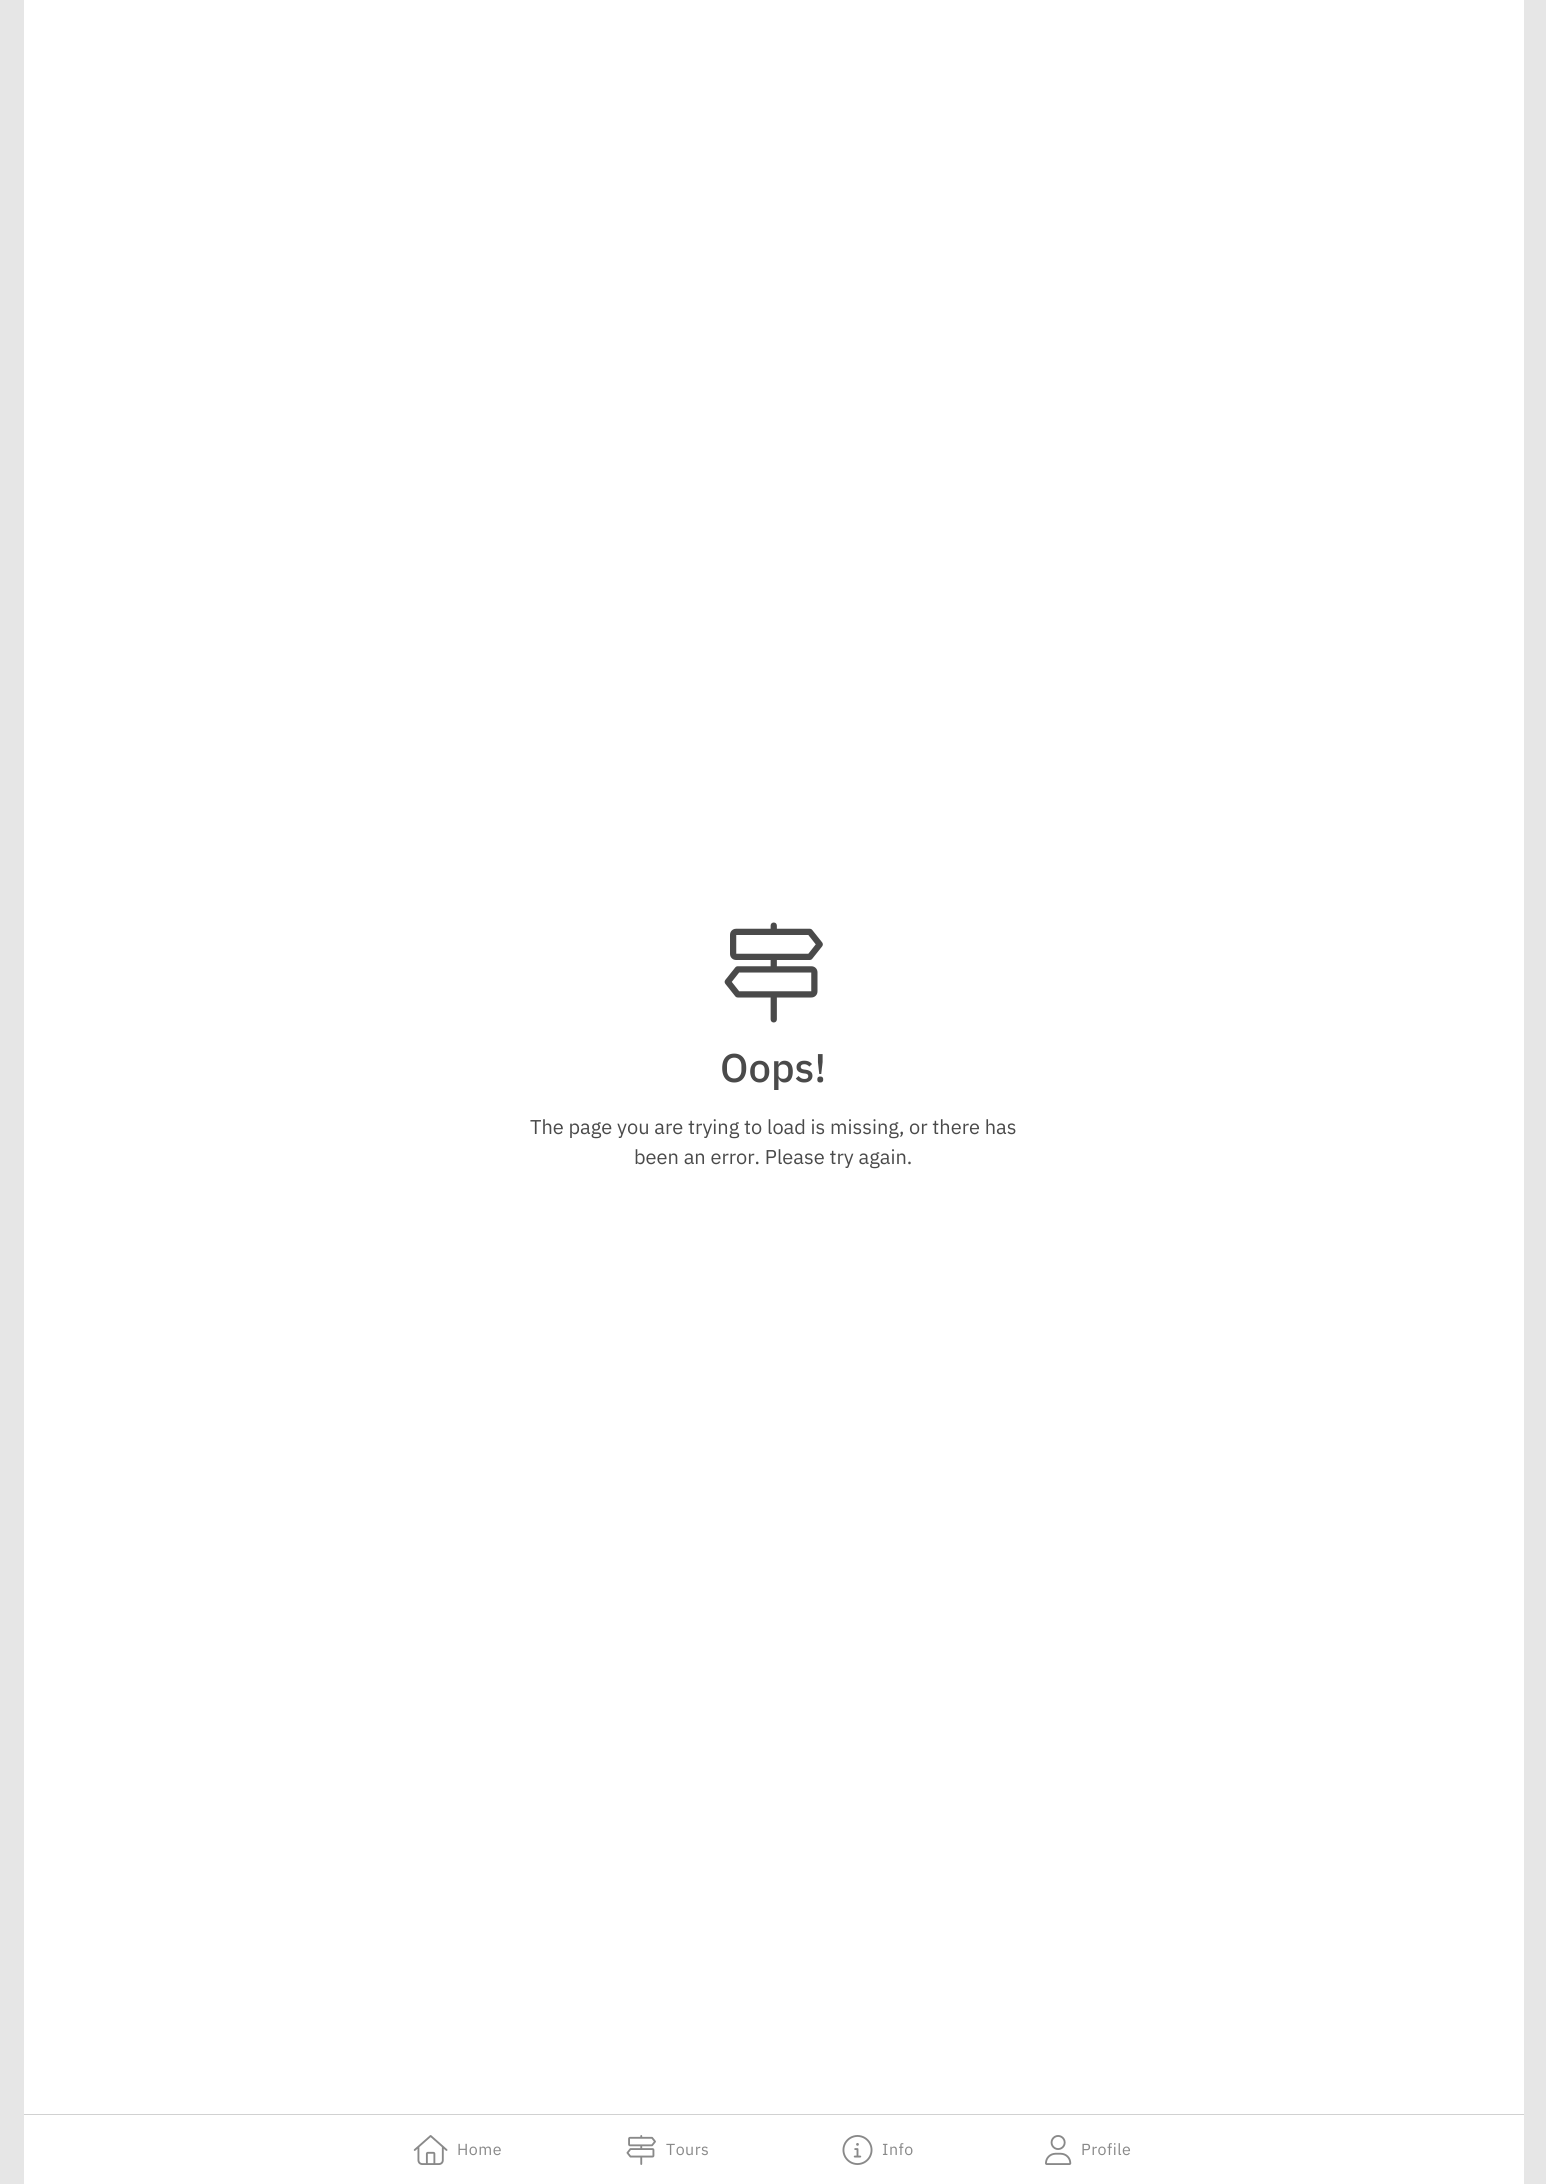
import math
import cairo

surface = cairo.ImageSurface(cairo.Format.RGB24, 1546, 2184)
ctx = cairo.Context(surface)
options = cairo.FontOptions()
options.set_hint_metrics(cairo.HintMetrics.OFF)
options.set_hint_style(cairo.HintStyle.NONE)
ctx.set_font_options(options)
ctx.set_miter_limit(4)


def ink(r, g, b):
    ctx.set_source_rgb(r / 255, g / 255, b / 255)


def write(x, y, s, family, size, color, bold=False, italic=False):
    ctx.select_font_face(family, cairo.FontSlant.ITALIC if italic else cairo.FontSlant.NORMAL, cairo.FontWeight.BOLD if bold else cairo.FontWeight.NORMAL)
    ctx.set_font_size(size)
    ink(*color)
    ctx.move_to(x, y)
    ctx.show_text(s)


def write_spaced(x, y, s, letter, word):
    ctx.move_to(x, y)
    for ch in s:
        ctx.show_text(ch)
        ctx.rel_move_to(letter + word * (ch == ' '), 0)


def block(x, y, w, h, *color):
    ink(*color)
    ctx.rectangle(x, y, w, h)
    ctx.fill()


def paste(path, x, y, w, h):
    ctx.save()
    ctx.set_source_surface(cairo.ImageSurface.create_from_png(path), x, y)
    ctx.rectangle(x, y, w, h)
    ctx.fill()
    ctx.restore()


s1 = dict(family="IBM Plex Sans Medium", size=40, color=(74, 74, 74))
s2 = dict(family="IBM Plex Sans", size=20, color=(74, 74, 74))

ink(230, 230, 230)
ctx.paint()
block(24, 0, 1500, 2184, 255, 255, 255)
paste("pic1.png", 724, 922, 99, 101)
write(720, 1082, "Oops!", **s1)
write(530, 1134, "The page you are trying to load is missing, or there has", **s2)
write(634, 1164, "been an error. Please try again.", **s2)
block(24, 2114, 1500, 1, 209, 209, 209)
paste("pic2.png", 413, 2135, 35, 30)
ctx.set_font_size(16)
ink(137, 137, 137)
write_spaced(457, 2155, "Home", 0.5, 0)
paste("pic3.png", 626, 2135, 30, 30)
write_spaced(666, 2155, "Tours", 0.5, 0)
paste("pic4.png", 842, 2135, 31, 30)
write_spaced(882, 2155, "Info", 0.5, 0)
paste("pic5.png", 1045, 2135, 27, 30)
write_spaced(1081, 2155, "Profile", 0.5, 0)
surface.write_to_png("screenshot.png")
